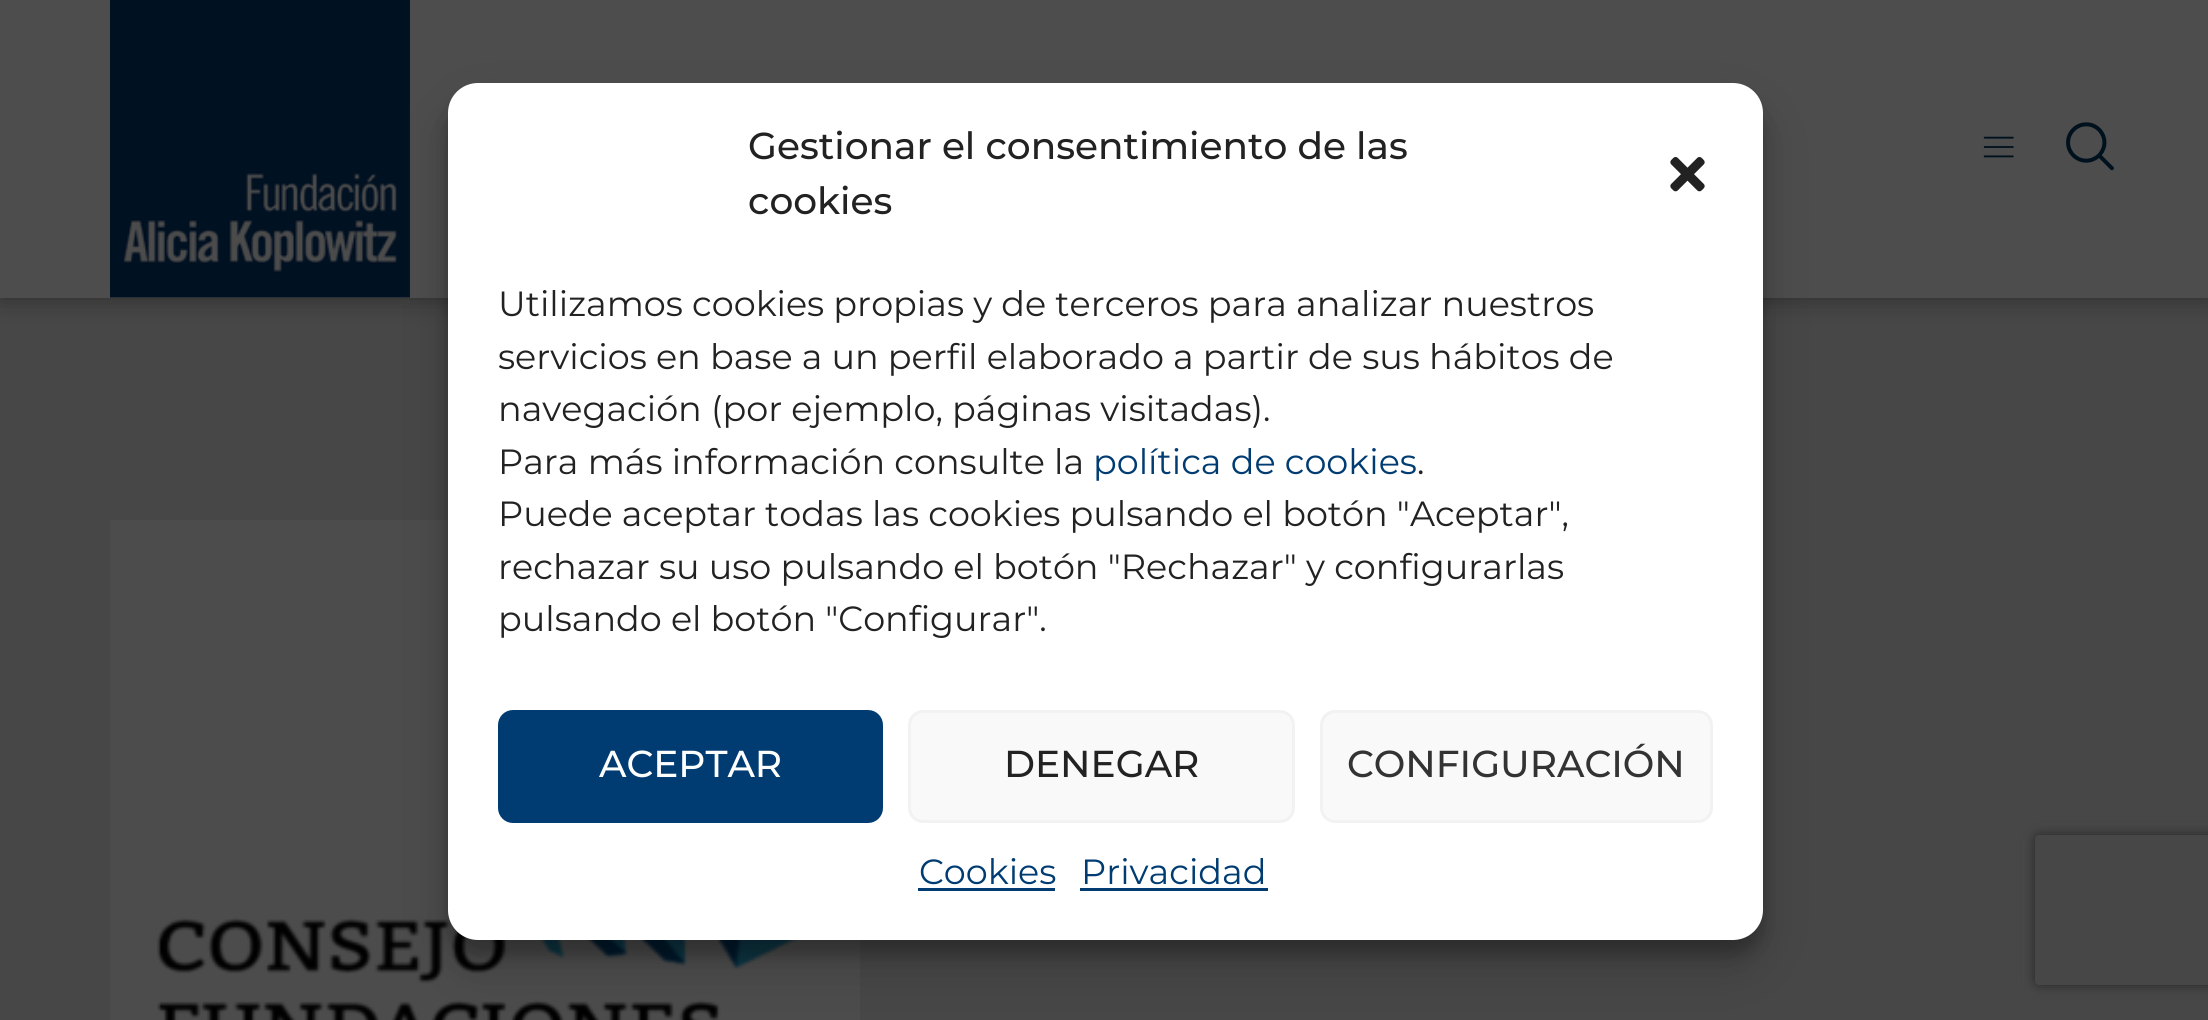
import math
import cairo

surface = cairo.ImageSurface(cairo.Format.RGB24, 2208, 1020)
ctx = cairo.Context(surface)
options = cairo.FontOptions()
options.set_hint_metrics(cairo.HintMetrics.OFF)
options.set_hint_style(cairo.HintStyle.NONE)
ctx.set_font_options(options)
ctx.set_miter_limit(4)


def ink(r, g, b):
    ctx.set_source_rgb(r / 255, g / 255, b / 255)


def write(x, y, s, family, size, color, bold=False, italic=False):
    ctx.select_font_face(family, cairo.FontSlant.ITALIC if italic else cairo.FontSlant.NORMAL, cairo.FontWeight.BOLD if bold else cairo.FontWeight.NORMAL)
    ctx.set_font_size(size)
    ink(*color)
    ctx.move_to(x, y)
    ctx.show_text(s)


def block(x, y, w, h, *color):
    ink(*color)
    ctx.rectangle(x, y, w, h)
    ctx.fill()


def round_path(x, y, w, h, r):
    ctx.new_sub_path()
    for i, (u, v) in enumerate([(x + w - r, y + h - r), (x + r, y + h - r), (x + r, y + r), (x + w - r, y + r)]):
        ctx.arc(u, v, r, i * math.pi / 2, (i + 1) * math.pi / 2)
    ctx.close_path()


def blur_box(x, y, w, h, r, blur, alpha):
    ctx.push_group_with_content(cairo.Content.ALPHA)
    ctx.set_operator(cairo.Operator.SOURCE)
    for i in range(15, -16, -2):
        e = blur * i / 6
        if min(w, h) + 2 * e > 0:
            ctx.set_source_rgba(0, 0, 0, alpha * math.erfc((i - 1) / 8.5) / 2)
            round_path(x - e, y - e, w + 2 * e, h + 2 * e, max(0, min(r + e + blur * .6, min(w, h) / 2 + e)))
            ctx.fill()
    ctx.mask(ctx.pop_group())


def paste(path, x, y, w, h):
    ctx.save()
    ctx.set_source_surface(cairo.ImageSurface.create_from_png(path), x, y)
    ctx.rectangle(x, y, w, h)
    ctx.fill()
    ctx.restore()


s1 = dict(family="Montserrat Medium", size=37.5, color=(34, 34, 34))
s2 = dict(family="Montserrat", size=35, color=(34, 34, 34))
s3 = dict(family="Montserrat", size=35, color=(0, 60, 114))
s4 = dict(family="Montserrat Medium", size=37.5, color=(255, 255, 255))
s5 = dict(family="Montserrat Medium", size=37.5, color=(51, 51, 51))

ink(71, 71, 71)
ctx.paint()
ink(0, 0, 0)
blur_box(0, 0, 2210, 298, 0, 12.5, 0.4)
block(0, 0, 2208, 298, 77, 77, 77)
paste("pic1.png", 110, 0, 300, 298)
paste("pic2.png", 1983, 136, 31, 22)
paste("pic3.png", 2066, 122, 48, 49)
paste("pic4.png", 110, 520, 750, 500)
ink(0, 0, 0)
blur_box(448, 98, 1315, 857, 30, 7.5, 0.23)
blur_box(448, 108, 1315, 857, 30, 25, 0.19)
ink(255, 255, 255)
round_path(448, 83, 1315, 857, 30)
ctx.fill()
write(748, 159, "Gestionar el consentimiento de las", **s1)
write(748, 214, "cookies", **s1)
paste("pic5.png", 1670, 157, 35, 35)
write(498, 316, "Utilizamos cookies propias y de terceros para analizar nuestros", **s2)
write(498, 369, "servicios en base a un perfil elaborado a partir de sus hábitos de", **s2)
write(498, 421, "navegación (por ejemplo, páginas visitadas).", **s2)
write(498, 474, "Para más información consulte la", **s2)
write(1093, 474, "política de cookies", **s3)
write(1417, 474, ".", **s2)
write(498, 526, "Puede aceptar todas las cookies pulsando el botón \"Aceptar\",", **s2)
write(498, 579, "rechazar su uso pulsando el botón \"Rechazar\" y configurarlas", **s2)
write(498, 631, "pulsando el botón \"Configurar\".", **s2)
ink(0, 60, 114)
round_path(499.5, 711.5, 382, 110, 13.5)
ctx.fill_preserve()
ctx.set_line_width(3)
ctx.stroke()
write(599, 777, "ACEPTAR", **s4)
ink(249, 249, 249)
round_path(909.5, 711.5, 384, 110, 13.5)
ctx.fill_preserve()
ink(242, 242, 242)
ctx.stroke()
write(1004, 777, "DENEGAR", **s1)
ink(249, 249, 249)
round_path(1321.5, 711.5, 390, 110, 13.5)
ctx.fill_preserve()
ink(242, 242, 242)
ctx.stroke()
write(1347, 777, "CONFIGURACIÓN", **s5)
write(919, 884, "Cookies", **s3)
block(918, 888, 137, 3, 0, 60, 114)
write(1081, 884, "Privacidad", **s3)
block(1080, 888, 188, 3, 0, 60, 114)
ctx.save()
ctx.set_fill_rule(cairo.FillRule.EVEN_ODD)
ctx.new_path()
ctx.move_to(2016, 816)
ctx.line_to(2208, 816)
ctx.line_to(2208, 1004)
ctx.line_to(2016, 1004)
ctx.close_path()
ctx.move_to(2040, 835)
ctx.line_to(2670, 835)
ctx.curve_to(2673, 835, 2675, 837, 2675, 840)
ctx.line_to(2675, 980)
ctx.curve_to(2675, 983, 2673, 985, 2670, 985)
ctx.line_to(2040, 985)
ctx.curve_to(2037, 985, 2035, 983, 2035, 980)
ctx.line_to(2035, 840)
ctx.curve_to(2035, 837, 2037, 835, 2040, 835)
ctx.close_path()
ctx.clip()
ink(38, 38, 38)
blur_box(2035, 835, 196, 150, 5, 6, 1)
ctx.restore()
surface.write_to_png("screenshot.png")
